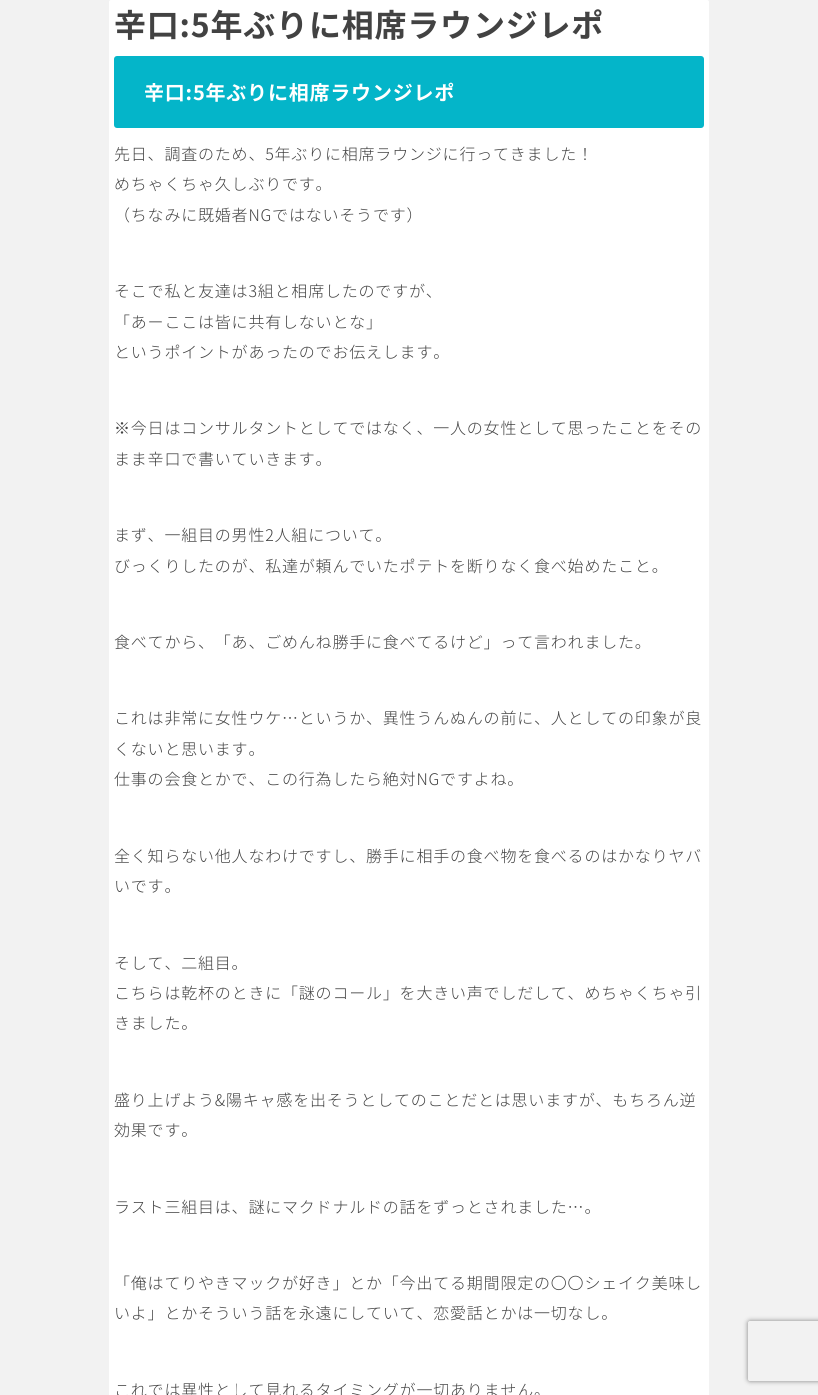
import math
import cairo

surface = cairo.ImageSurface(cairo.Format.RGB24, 818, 1395)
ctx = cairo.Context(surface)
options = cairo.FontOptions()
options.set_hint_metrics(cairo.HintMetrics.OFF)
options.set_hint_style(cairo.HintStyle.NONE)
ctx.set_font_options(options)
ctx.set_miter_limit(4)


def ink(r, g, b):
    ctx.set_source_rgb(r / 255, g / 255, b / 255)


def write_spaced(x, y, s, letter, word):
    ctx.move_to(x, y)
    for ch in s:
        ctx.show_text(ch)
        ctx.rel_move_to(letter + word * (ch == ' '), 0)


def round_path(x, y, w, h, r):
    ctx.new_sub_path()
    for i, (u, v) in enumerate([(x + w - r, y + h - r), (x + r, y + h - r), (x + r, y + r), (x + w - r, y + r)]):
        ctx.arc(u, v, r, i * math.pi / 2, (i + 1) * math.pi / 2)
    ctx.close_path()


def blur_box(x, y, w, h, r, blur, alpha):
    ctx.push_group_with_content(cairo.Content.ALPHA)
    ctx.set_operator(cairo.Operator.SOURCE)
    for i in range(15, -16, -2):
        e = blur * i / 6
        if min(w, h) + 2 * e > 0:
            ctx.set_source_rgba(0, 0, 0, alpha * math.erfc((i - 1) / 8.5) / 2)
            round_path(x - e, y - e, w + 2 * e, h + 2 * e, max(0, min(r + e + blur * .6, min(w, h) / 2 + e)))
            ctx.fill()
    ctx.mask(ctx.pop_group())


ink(242, 242, 242)
ctx.paint()
ink(255, 255, 255)
round_path(109, 0, 600, 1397, 2)
ctx.fill()
ctx.select_font_face("Noto Sans JP", cairo.FontSlant.NORMAL, cairo.FontWeight.BOLD)
ctx.set_font_size(32)
ink(66, 66, 66)
write_spaced(114, 37, "辛口:5年ぶりに相席ラウンジレポ", 0.8, 0)
ink(4, 181, 201)
round_path(114, 56, 590, 72, 3)
ctx.fill()
ctx.set_font_size(20)
ink(255, 255, 255)
write_spaced(144, 100, "辛口:5年ぶりに相席ラウンジレポ", 0.8, 0)
ctx.select_font_face("Noto Sans JP Light")
ctx.set_font_size(16)
ink(66, 66, 66)
write_spaced(114, 160, "先日、調査のため、5年ぶりに相席ラウンジに行ってきました！", 0.8, 0)
write_spaced(114, 190, "めちゃくちゃ久しぶりです。", 0.8, 0)
write_spaced(114, 221, "（ちなみに既婚者NGではないそうです）", 0.8, 0)
write_spaced(114, 297, "そこで私と友達は3組と相席したのですが、", 0.8, 0)
write_spaced(114, 328, "「あーここは皆に共有しないとな」", 0.8, 0)
write_spaced(114, 358, "というポイントがあったのでお伝えします。", 0.8, 0)
write_spaced(114, 434, "※今日はコンサルタントとしてではなく、一人の女性として思ったことをその", 0.8, 0)
write_spaced(114, 465, "まま辛口で書いていきます。", 0.8, 0)
write_spaced(114, 541, "まず、一組目の男性2人組について。", 0.8, 0)
write_spaced(114, 572, "びっくりしたのが、私達が頼んでいたポテトを断りなく食べ始めたこと。", 0.8, 0)
write_spaced(114, 648, "食べてから、「あ、ごめんね勝手に食べてるけど」って言われました。", 0.8, 0)
write_spaced(114, 724, "これは非常に女性ウケ…というか、異性うんぬんの前に、人としての印象が良", 0.8, 0)
write_spaced(114, 755, "くないと思います。", 0.8, 0)
write_spaced(114, 785, "仕事の会食とかで、この行為したら絶対NGですよね。", 0.8, 0)
write_spaced(114, 862, "全く知らない他人なわけですし、勝手に相手の食べ物を食べるのはかなりヤバ", 0.8, 0)
write_spaced(114, 892, "いです。", 0.8, 0)
write_spaced(114, 969, "そして、二組目。", 0.8, 0)
write_spaced(114, 999, "こちらは乾杯のときに「謎のコール」を大きい声でしだして、めちゃくちゃ引", 0.8, 0)
write_spaced(114, 1029, "きました。", 0.8, 0)
write_spaced(114, 1106, "盛り上げよう&陽キャ感を出そうとしてのことだとは思いますが、もちろん逆", 0.8, 0)
write_spaced(114, 1136, "効果です。", 0.8, 0)
write_spaced(114, 1213, "ラスト三組目は、謎にマクドナルドの話をずっとされました…。", 0.8, 0)
write_spaced(114, 1289, "「俺はてりやきマックが好き」とか「今出てる期間限定の〇〇シェイク美味し", 0.8, 0)
write_spaced(114, 1319, "いよ」とかそういう話を永遠にしていて、恋愛話とかは一切なし。", 0.8, 0)
write_spaced(114, 1396, "これでは異性として見れるタイミングが一切ありません。", 0.8, 0)
ctx.save()
ctx.set_fill_rule(cairo.FillRule.EVEN_ODD)
ctx.new_path()
ctx.move_to(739, 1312)
ctx.line_to(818, 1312)
ctx.line_to(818, 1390)
ctx.line_to(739, 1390)
ctx.close_path()
ctx.move_to(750, 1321)
ctx.line_to(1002, 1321)
ctx.curve_to(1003, 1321, 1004, 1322, 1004, 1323)
ctx.line_to(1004, 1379)
ctx.curve_to(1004, 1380, 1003, 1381, 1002, 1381)
ctx.line_to(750, 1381)
ctx.curve_to(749, 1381, 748, 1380, 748, 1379)
ctx.line_to(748, 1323)
ctx.curve_to(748, 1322, 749, 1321, 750, 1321)
ctx.close_path()
ctx.clip()
ink(128, 128, 128)
blur_box(748, 1321, 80, 60, 2, 2.5, 1)
ctx.restore()
surface.write_to_png("screenshot.png")
